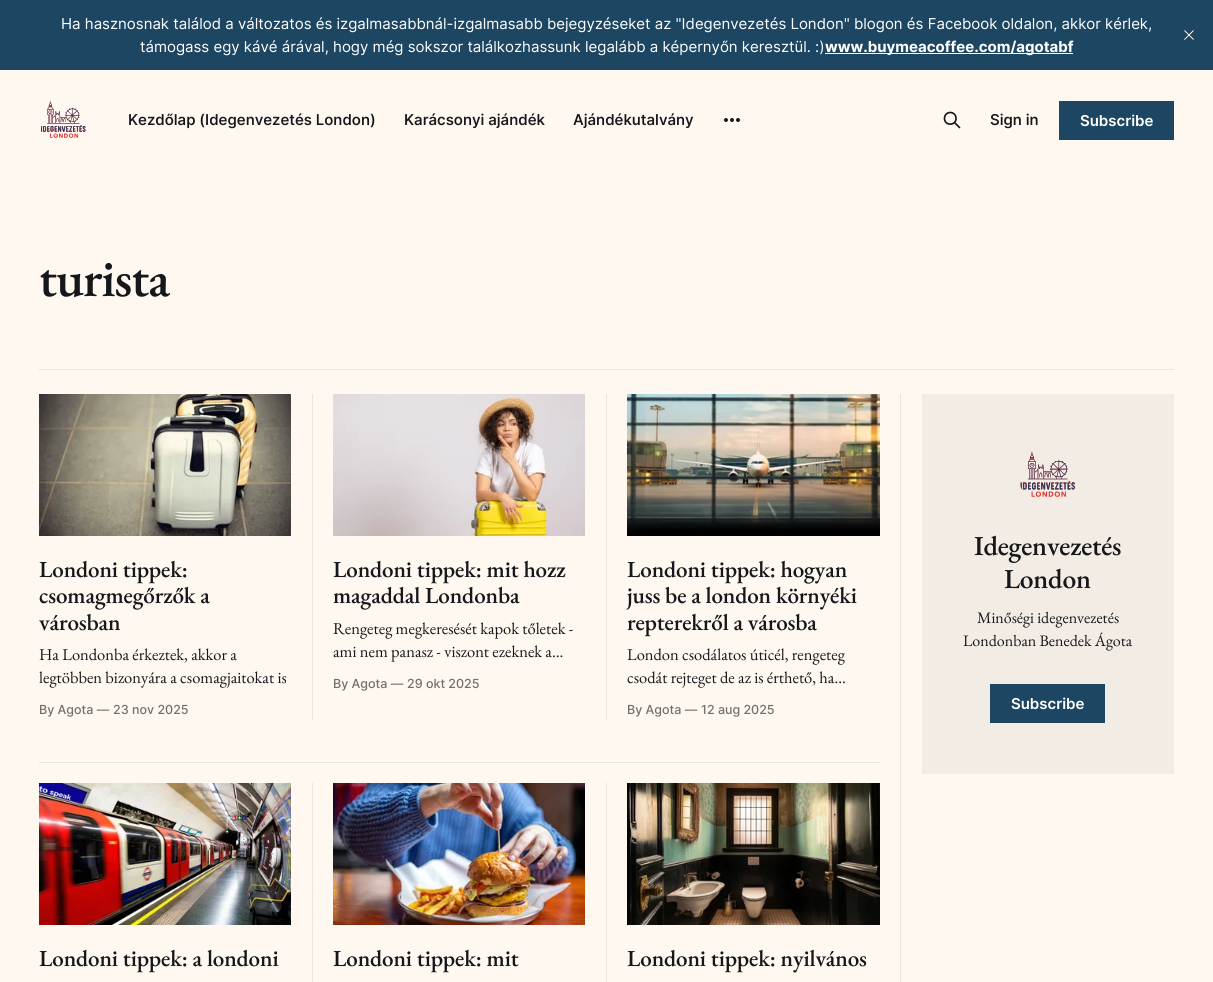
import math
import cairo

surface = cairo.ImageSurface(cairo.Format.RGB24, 1213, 982)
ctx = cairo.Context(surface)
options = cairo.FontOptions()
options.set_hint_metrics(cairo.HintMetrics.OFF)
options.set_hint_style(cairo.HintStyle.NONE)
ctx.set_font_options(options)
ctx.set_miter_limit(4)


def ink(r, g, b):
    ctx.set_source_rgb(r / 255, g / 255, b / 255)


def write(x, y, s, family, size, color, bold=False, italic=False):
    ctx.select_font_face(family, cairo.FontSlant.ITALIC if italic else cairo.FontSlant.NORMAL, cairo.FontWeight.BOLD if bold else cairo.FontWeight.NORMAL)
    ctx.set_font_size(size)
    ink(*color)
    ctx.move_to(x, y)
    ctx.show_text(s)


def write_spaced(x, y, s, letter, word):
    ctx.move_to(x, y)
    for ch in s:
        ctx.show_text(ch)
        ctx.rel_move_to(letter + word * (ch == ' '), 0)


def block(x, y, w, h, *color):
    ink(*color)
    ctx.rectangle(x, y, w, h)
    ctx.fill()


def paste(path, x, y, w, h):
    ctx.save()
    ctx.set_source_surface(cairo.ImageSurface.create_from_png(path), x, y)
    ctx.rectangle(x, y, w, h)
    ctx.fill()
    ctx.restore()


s1 = dict(family="Inter", size=15, color=(255, 255, 255))
s2 = dict(family="Inter", size=15, color=(255, 255, 255), bold=True)
s3 = dict(family="Inter Medium", size=15, color=(21, 23, 26))
s4 = dict(family="Inter SemiBold", size=15, color=(255, 255, 255))
s5 = dict(family="EB Garamond", size=16.5, color=(21, 23, 26))
s6 = dict(family="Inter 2 Medium", size=12.5, color=(115, 112, 108))
s7 = dict(family="EB Garamond", size=16, color=(21, 23, 26))

ink(255, 248, 240)
ctx.paint()
block(0, 0, 1213, 70, 29, 70, 99)
write(61, 29, "Ha hasznosnak találod a változatos és izgalmasabbnál-izgalmasabb bejegyzéseket az \"Idegenvezetés London\" blogon és Facebook oldalon, akkor kérlek,", **s1)
write(140, 52, "támogass egy kávé árával, hogy még sokszor találkozhassunk legalább a képernyőn keresztül. :)", **s1)
block(825, 53, 248, 1, 255, 255, 255)
write(825, 52, "www.buymeacoffee.com/agotabf", **s2)
paste("pic1.png", 1184, 30, 10, 10)
paste("pic2.png", 41, 101, 45, 37)
write(128, 125, "Kezdőlap (Idegenvezetés London)", **s3)
write(404, 125, "Karácsonyi ajándék", **s3)
write(573, 125, "Ajándékutalvány", **s3)
paste("pic3.png", 724, 118, 16, 4)
ctx.new_path()
ctx.move_to(959.5, 127.5)
ctx.line_to(954.5, 122.5)
ctx.move_to(956, 118.5)
ctx.curve_to(956, 126, 944.5, 126, 944.5, 118.5)
ctx.curve_to(944.5, 110.5, 956, 110.5, 956, 118.5)
ctx.close_path()
ctx.set_line_width(1.7)
ctx.set_line_cap(cairo.LineCap.ROUND)
ctx.set_line_join(cairo.LineJoin.ROUND)
ctx.stroke()
write(990, 125, "Sign in", **s3)
block(1059, 101, 115, 39, 29, 70, 99)
write(1080, 126, "Subscribe", **s4)
block(39, 369, 1135, 1, 235, 228, 221)
ctx.select_font_face("EB Garamond Medium")
ctx.set_font_size(52)
ink(21, 23, 26)
write_spaced(39, 296, "turista", -1, 0)
paste("pic4.png", 39, 394, 252, 142)
ctx.set_font_size(23)
write_spaced(39, 577, "Londoni tippek:", -0.15, 0)
write_spaced(39, 603, "csomagmegőrzők a", -0.15, 0)
write_spaced(39, 630, "városban", -0.15, 0)
write(39, 660, "Ha Londonba érkeztek, akkor a", **s5)
write(39, 683, "legtöbben bizonyára a csomagjaitokat is", **s5)
write(39, 714, "By Agota —", **s6)
write(113, 714, "23 nov 2025", **s6)
block(312, 394, 1, 326, 235, 228, 221)
paste("pic5.png", 333, 394, 252, 142)
ctx.select_font_face("EB Garamond Medium")
ctx.set_font_size(23)
ink(21, 23, 26)
write_spaced(333, 577, "Londoni tippek: mit hozz", -0.15, 0)
write_spaced(333, 603, "magaddal Londonba", -0.15, 0)
write(333, 634, "Rengeteg megkeresését kapok tőletek -", **s5)
write(333, 657, "ami nem panasz - viszont ezeknek a…", **s5)
write(333, 688, "By Agota —", **s6)
write(407, 688, "29 okt 2025", **s6)
block(606, 394, 1, 326, 235, 228, 221)
paste("pic6.png", 627, 394, 253, 142)
ctx.select_font_face("EB Garamond Medium")
ctx.set_font_size(23)
ink(21, 23, 26)
write_spaced(627, 577, "Londoni tippek: hogyan", -0.15, 0)
write_spaced(627, 603, "juss be a london környéki", -0.15, 0)
write_spaced(627, 630, "repterekről a városba", -0.15, 0)
write(627, 660, "London csodálatos úticél, rengeteg", **s5)
write(627, 683, "csodát rejteget de az is érthető, ha…", **s5)
write(627, 714, "By Agota —", **s6)
write(701, 714, "12 aug 2025", **s6)
block(39, 762, 841, 1, 235, 228, 221)
paste("pic7.png", 39, 783, 252, 142)
ctx.select_font_face("EB Garamond Medium")
ctx.set_font_size(23)
ink(21, 23, 26)
write_spaced(39, 966, "Londoni tippek: a londoni", -0.15, 0)
block(312, 783, 1, 199, 235, 228, 221)
paste("pic8.png", 333, 783, 252, 142)
ink(21, 23, 26)
write_spaced(333, 966, "Londoni tippek: mit", -0.15, 0)
block(606, 783, 1, 199, 235, 228, 221)
paste("pic9.png", 627, 783, 253, 142)
ink(21, 23, 26)
write_spaced(627, 966, "Londoni tippek: nyilvános", -0.15, 0)
block(900, 394, 1, 588, 235, 228, 221)
block(922, 394, 252, 380, 243, 236, 228)
paste("pic10.png", 1020, 451, 55, 46)
ctx.set_font_size(27.5)
ink(21, 23, 26)
write_spaced(974, 555, "Idegenvezetés", -0.25, 0)
write_spaced(1004, 588, "London", -0.25, 0)
write(977, 623, "Minőségi idegenvezetés", **s7)
write(963, 646, "Londonban Benedek Ágota", **s7)
block(990, 684, 115, 39, 29, 70, 99)
write(1011, 709, "Subscribe", **s4)
surface.write_to_png("screenshot.png")
